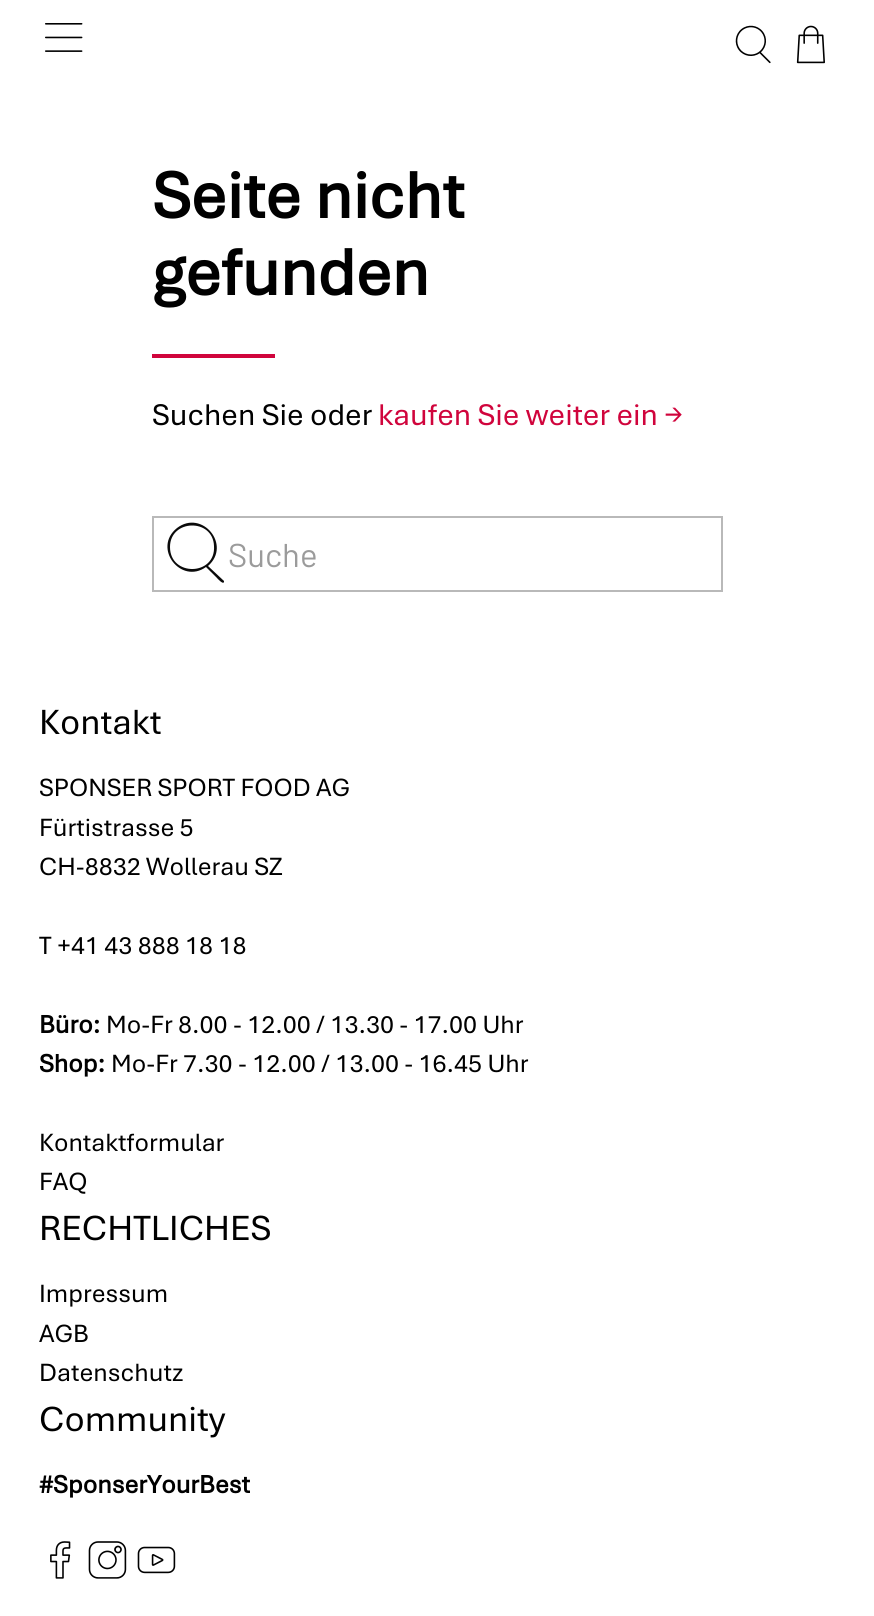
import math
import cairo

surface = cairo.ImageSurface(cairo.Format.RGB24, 874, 1616)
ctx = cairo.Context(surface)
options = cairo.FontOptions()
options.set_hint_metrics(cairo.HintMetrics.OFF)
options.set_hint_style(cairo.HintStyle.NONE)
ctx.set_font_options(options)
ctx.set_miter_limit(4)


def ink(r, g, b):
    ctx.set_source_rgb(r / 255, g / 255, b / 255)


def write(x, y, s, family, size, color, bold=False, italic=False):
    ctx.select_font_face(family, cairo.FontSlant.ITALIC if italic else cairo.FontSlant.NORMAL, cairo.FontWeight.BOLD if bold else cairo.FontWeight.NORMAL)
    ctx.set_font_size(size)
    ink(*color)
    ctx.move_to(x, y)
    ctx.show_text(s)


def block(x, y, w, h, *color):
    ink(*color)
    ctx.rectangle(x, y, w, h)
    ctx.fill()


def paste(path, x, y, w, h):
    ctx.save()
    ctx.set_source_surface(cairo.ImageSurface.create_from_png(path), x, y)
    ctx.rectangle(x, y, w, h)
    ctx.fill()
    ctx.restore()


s1 = dict(family="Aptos", size=68.25, color=(0, 0, 0), bold=True)
s2 = dict(family="Aptos", size=31.5, color=(0, 0, 0))
s3 = dict(family="Aptos", size=31.5, color=(208, 4, 60))
s4 = dict(family="Barlow", size=33, color=(155, 155, 155))
s5 = dict(family="Aptos", size=36.75, color=(0, 0, 0))
s6 = dict(family="Aptos", size=26.25, color=(0, 0, 0))
s7 = dict(family="Aptos", size=26.25, color=(0, 0, 0), bold=True)

ink(255, 255, 255)
ctx.paint()
paste("pic1.png", 45, 23, 38, 29)
paste("pic2.png", 735, 25, 36, 39)
paste("pic3.png", 796, 25, 29, 39)
write(152, 218, "Seite nicht", **s1)
write(152, 295, "gefunden", **s1)
block(152, 354, 123, 4, 208, 4, 60)
write(152, 425, "Suchen Sie oder", **s2)
write(378, 425, "kaufen Sie weiter ein →", **s3)
ctx.rectangle(153, 517, 569, 74)
ink(185, 185, 185)
ctx.stroke()
ink(10, 10, 10)
ctx.new_path()
ctx.move_to(224, 581)
ctx.line_to(208, 566)
ctx.curve_to(232, 545, 202, 509, 177, 528)
ctx.curve_to(152, 548, 181, 585, 206, 567)
ctx.line_to(217, 578)
ctx.curve_to(217, 578, 223, 585, 224, 582)
ctx.close_path()
ctx.move_to(170, 547)
ctx.curve_to(170, 519, 213, 518, 214, 546)
ctx.curve_to(216, 576, 170, 577, 170, 547)
ctx.close_path()
ctx.fill()
write(228, 567, "Suche", **s4)
write(39, 734, "Kontakt", **s5)
write(39, 796, "SPONSER SPORT FOOD AG", **s6)
write(39, 836, "Fürtistrasse 5", **s6)
write(39, 875, "CH-8832 Wollerau SZ", **s6)
write(39, 954, "T +41 43 888 18 18", **s6)
write(39, 1033, "Büro:", **s7)
write(106, 1033, "Mo-Fr 8.00 - 12.00 / 13.30 - 17.00 Uhr", **s6)
write(39, 1072, "Shop:", **s7)
write(111, 1072, "Mo-Fr 7.30 - 12.00 / 13.00 - 16.45 Uhr", **s6)
write(39, 1151, "Kontaktformular", **s6)
write(39, 1190, "FAQ", **s6)
write(39, 1240, "RECHTLICHES", **s5)
write(39, 1302, "Impressum", **s6)
write(39, 1342, "AGB", **s6)
write(39, 1381, "Datenschutz", **s6)
write(39, 1431, "Community", **s5)
write(39, 1493, "#SponserYourBest", **s7)
paste("pic4.png", 50, 1541, 21, 38)
paste("pic5.png", 88, 1541, 39, 38)
paste("pic6.png", 137, 1546, 39, 28)
surface.write_to_png("screenshot.png")
